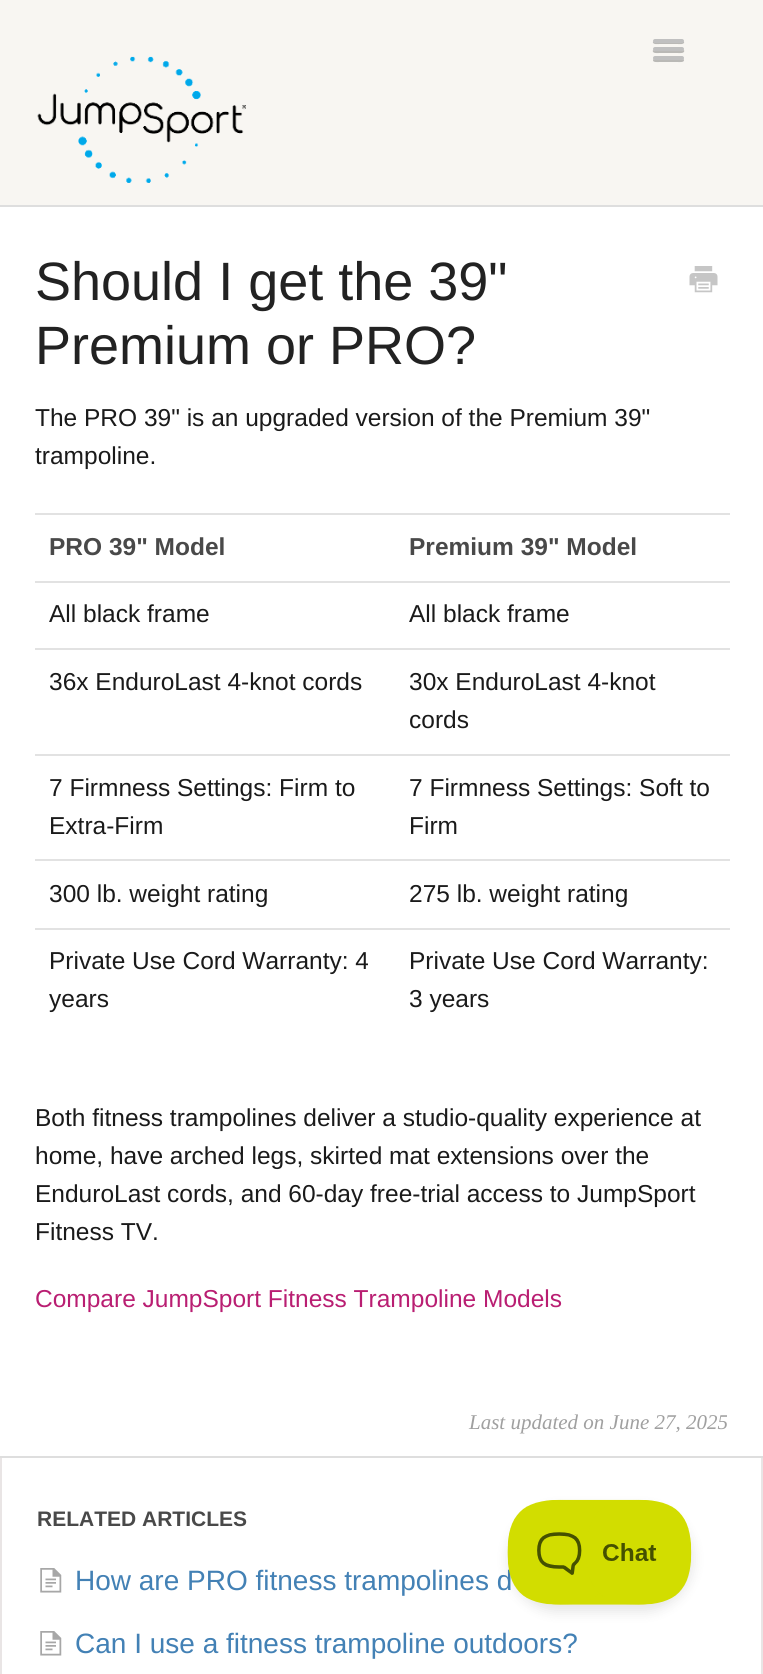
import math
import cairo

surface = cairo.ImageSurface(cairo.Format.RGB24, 763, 1674)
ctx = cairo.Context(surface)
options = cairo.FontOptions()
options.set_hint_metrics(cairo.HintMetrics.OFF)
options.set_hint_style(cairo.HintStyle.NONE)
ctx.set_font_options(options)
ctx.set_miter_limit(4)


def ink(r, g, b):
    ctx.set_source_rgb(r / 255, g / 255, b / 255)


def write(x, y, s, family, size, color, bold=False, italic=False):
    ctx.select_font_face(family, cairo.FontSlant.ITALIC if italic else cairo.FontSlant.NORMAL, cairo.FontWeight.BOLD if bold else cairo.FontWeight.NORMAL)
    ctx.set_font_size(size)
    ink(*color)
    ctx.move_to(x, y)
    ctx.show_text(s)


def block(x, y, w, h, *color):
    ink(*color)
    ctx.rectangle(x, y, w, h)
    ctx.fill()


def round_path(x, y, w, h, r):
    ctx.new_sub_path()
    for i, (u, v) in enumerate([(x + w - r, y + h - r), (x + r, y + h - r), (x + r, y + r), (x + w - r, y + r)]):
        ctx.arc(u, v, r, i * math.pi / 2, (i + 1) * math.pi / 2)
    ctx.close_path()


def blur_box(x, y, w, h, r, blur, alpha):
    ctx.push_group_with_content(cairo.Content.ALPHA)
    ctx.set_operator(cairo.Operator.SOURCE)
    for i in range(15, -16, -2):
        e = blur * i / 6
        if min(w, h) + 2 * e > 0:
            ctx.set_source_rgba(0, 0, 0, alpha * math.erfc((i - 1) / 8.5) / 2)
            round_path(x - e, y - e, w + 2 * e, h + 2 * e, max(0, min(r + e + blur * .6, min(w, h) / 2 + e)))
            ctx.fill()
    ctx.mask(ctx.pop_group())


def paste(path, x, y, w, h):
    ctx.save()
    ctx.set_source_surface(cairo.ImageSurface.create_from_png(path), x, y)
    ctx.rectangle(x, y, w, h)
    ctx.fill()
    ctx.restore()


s1 = dict(family="Liberation Sans", size=54, color=(34, 34, 34))
s2 = dict(family="Liberation Sans", size=24.5, color=(26, 26, 26))
s3 = dict(family="Liberation Sans", size=24.5, color=(73, 73, 73), bold=True)
s4 = dict(family="Liberation Sans", size=24.5, color=(185, 30, 114))
s5 = dict(family="Liberation Serif", size=21, color=(160, 160, 160), italic=True)
s6 = dict(family="Liberation Sans", size=21, color=(73, 73, 73), bold=True)
s7 = dict(family="Liberation Sans", size=28, color=(67, 129, 181))

ink(255, 255, 255)
ctx.paint()
block(0, 0, 763, 205, 248, 246, 242)
ink(186, 185, 182)
ctx.new_path()
ctx.move_to(653, 41.5)
ctx.curve_to(652, 45, 658.5, 44, 659.5, 44)
ctx.line_to(677.5, 44)
ctx.curve_to(678.5, 44, 685, 45, 684, 41.5)
ctx.line_to(682.5, 42)
ctx.line_to(654.5, 42)
ctx.close_path()
ctx.fill()
ink(192, 192, 192)
round_path(653, 39, 31, 4, 2)
ctx.fill()
ink(186, 185, 182)
ctx.new_path()
ctx.move_to(653, 50)
ctx.curve_to(651.5, 54, 658.5, 53, 659.5, 53)
ctx.line_to(677.5, 53)
ctx.curve_to(678.5, 53, 685.5, 54, 684, 50)
ctx.line_to(682.5, 50.5)
ctx.line_to(654.5, 50.5)
ctx.close_path()
ctx.fill()
ink(192, 192, 192)
round_path(653, 47, 31, 4, 2)
ctx.fill()
ink(186, 185, 182)
ctx.new_path()
ctx.move_to(653.5, 59)
ctx.curve_to(651, 63, 659, 62, 659.5, 62)
ctx.line_to(677.5, 62)
ctx.curve_to(678, 62, 686, 63, 683.5, 59)
ctx.line_to(682.5, 59.5)
ctx.line_to(654.5, 59.5)
ctx.close_path()
ctx.fill()
ink(192, 192, 192)
round_path(653, 56, 31, 4, 2)
ctx.fill()
paste("pic1.png", 37, 56, 209, 127)
block(0, 205, 763, 2, 222, 222, 222)
block(0, 1456, 763, 2, 222, 222, 222)
write(35, 300, "Should I get the 39\"", **s1)
write(35, 364, "Premium or PRO?", **s1)
paste("pic2.png", 689, 266, 29, 27)
write(35, 426, "The PRO 39\" is an upgraded version of the Premium 39\"", **s2)
write(35, 464, "trampoline.", **s2)
write(49, 555, "PRO 39\" Model", **s3)
block(35, 513, 695, 2, 226, 226, 226)
write(409, 555, "Premium 39\" Model", **s3)
write(49, 622, "All black frame", **s2)
block(35, 581, 695, 2, 226, 226, 226)
write(409, 622, "All black frame", **s2)
write(49, 690, "36x EnduroLast 4-knot cords", **s2)
block(35, 648, 695, 2, 226, 226, 226)
write(409, 690, "30x EnduroLast 4-knot", **s2)
write(409, 728, "cords", **s2)
write(49, 796, "7 Firmness Settings: Firm to", **s2)
write(49, 834, "Extra-Firm", **s2)
block(35, 754, 695, 2, 226, 226, 226)
write(409, 796, "7 Firmness Settings: Soft to", **s2)
write(409, 834, "Firm", **s2)
write(49, 902, "300 lb. weight rating", **s2)
block(35, 859, 695, 2, 226, 226, 226)
write(409, 902, "275 lb. weight rating", **s2)
write(49, 969, "Private Use Cord Warranty: 4", **s2)
write(49, 1007, "years", **s2)
block(35, 928, 695, 2, 226, 226, 226)
write(409, 969, "Private Use Cord Warranty:", **s2)
write(409, 1007, "3 years", **s2)
write(35, 1126, "Both fitness trampolines deliver a studio-quality experience at", **s2)
write(35, 1164, "home, have arched legs, skirted mat extensions over the", **s2)
write(35, 1202, "EnduroLast cords, and 60-day free-trial access to JumpSport", **s2)
write(35, 1240, "Fitness TV.", **s2)
write(35, 1307, "Compare JumpSport Fitness Trampoline Models", **s4)
write(469, 1429, "Last updated on June 27, 2025", **s5)
block(761, 1458, 2, 216, 233, 229, 229)
block(0, 1458, 2, 216, 233, 229, 229)
write(37, 1526, "RELATED ARTICLES", **s6)
paste("pic3.png", 40, 1568, 22, 25)
write(75, 1590, "How are PRO fitness trampolines d", **s7)
paste("pic3.png", 40, 1631, 22, 25)
write(75, 1653, "Can I use a fitness trampoline outdoors?", **s7)
ink(0, 0, 0)
blur_box(508, 1507, 185, 105, 52.5, 6, 0.1)
paste("pic4.png", 507, 1499, 185, 106)
surface.write_to_png("screenshot.png")
